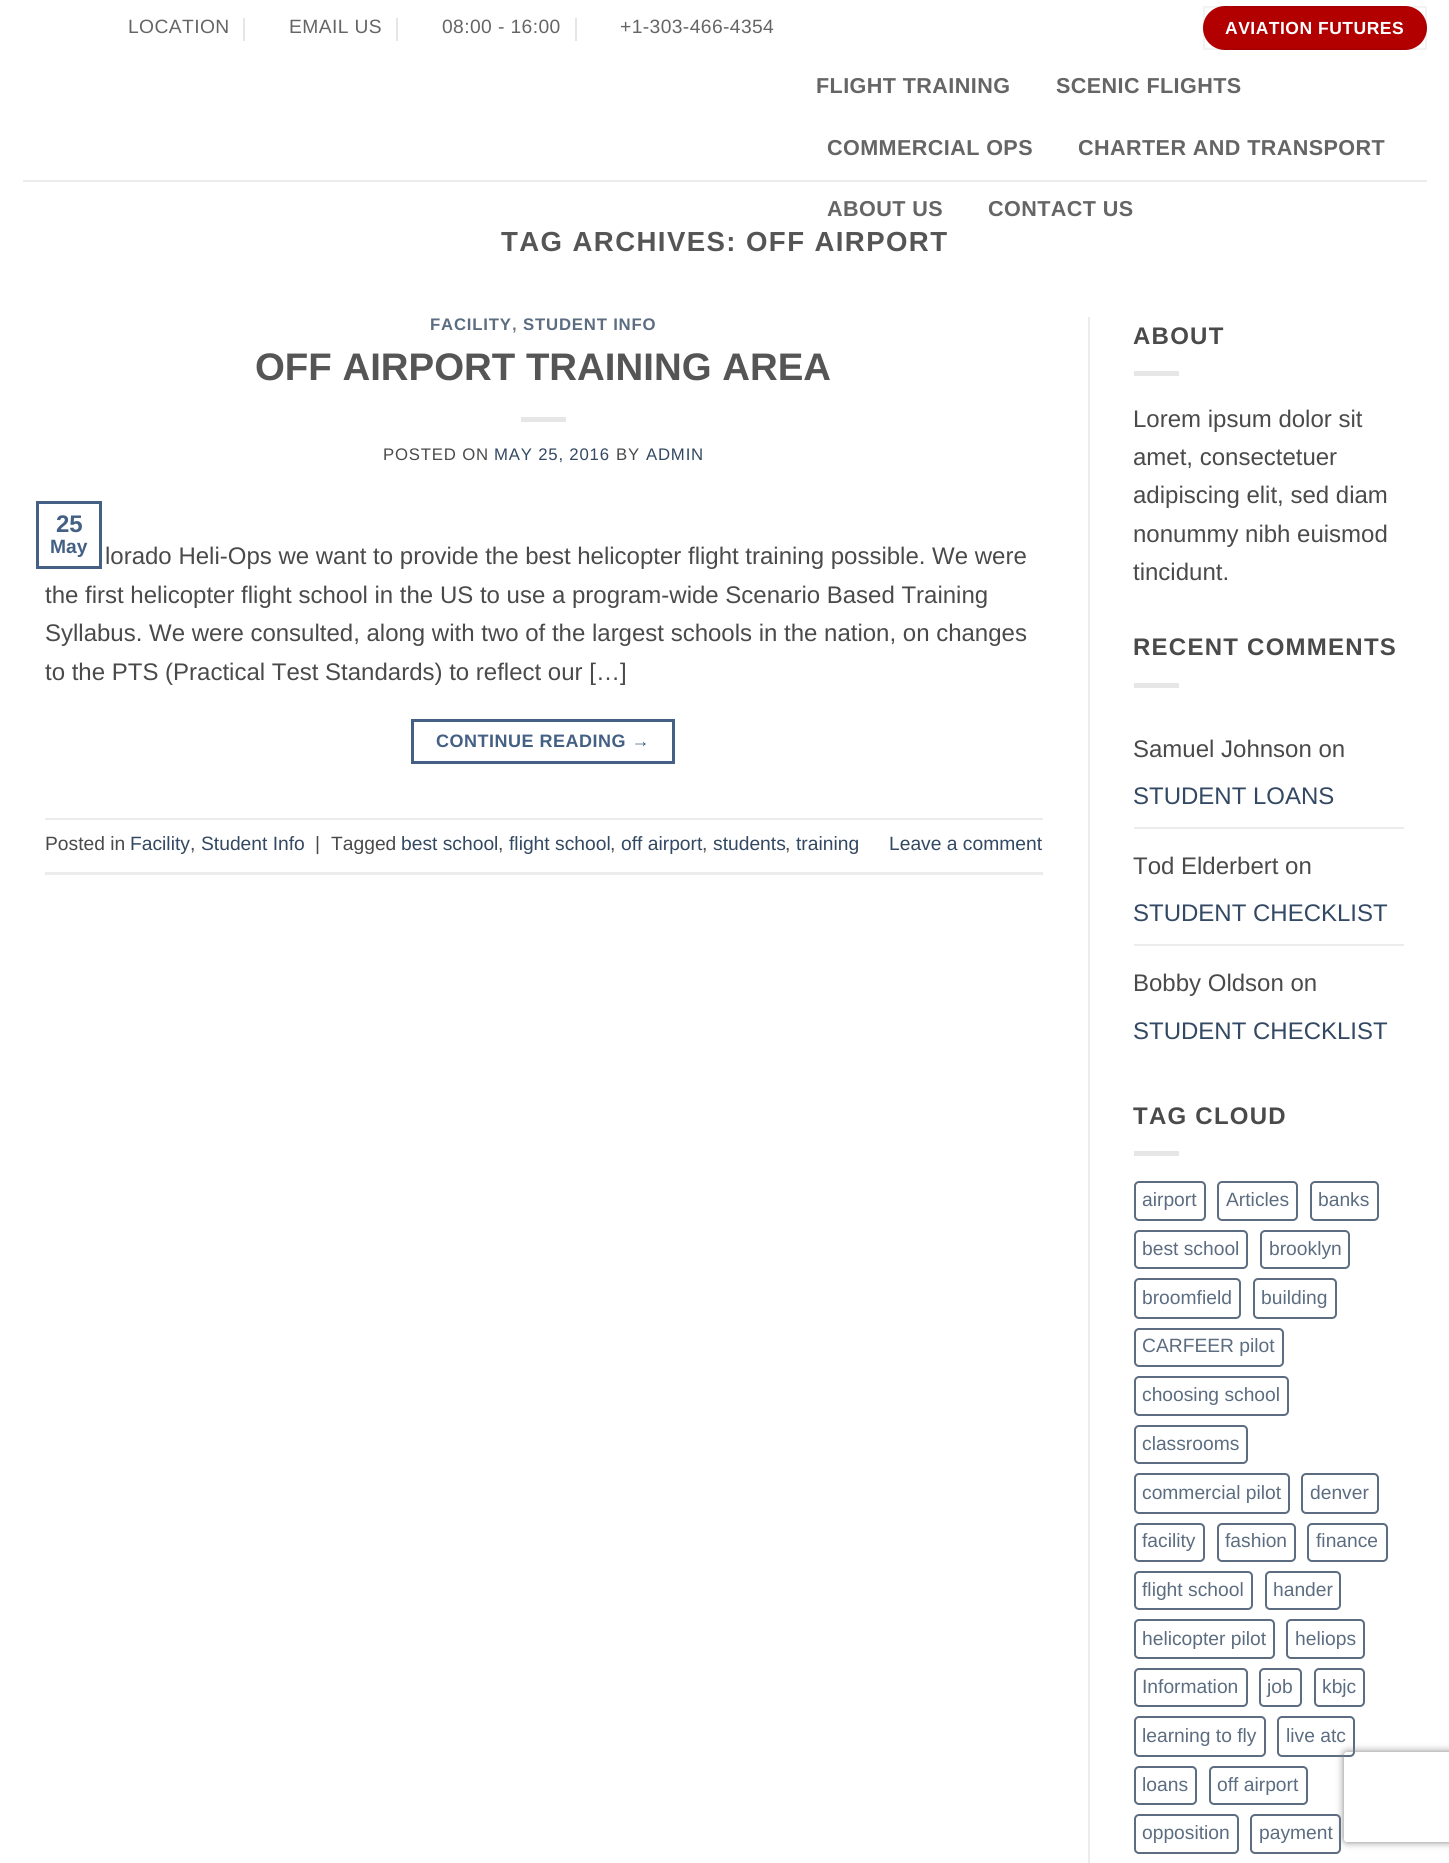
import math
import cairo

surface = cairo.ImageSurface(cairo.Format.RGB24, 1449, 1863)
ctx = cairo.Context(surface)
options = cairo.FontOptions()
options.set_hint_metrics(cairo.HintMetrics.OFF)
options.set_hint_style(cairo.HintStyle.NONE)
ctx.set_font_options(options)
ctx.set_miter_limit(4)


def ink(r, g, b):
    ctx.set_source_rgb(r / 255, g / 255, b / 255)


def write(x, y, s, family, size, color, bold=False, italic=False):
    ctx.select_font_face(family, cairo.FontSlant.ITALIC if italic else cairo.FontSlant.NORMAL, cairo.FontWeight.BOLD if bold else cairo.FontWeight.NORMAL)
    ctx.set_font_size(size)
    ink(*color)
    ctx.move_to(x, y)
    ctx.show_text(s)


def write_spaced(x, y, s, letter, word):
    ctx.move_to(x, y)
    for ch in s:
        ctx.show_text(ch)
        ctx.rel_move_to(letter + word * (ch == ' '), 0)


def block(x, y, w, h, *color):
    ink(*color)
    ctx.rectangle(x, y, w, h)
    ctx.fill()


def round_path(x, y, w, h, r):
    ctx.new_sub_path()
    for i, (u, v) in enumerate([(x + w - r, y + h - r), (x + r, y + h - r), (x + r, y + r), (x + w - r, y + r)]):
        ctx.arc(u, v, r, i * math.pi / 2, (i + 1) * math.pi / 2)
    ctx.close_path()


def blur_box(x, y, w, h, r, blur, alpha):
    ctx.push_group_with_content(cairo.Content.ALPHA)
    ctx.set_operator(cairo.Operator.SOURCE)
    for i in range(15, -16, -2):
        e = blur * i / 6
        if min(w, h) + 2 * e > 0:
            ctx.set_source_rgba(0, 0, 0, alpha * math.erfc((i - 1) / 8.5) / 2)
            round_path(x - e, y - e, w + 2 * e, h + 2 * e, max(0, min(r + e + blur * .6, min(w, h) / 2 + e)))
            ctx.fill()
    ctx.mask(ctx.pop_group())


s1 = dict(family="Liberation Sans", size=38.4, color=(85, 85, 85), bold=True)
s2 = dict(family="Liberation Sans", size=24, color=(68, 96, 132), bold=True)
s3 = dict(family="Liberation Sans", size=19.25, color=(68, 96, 132), bold=True)
s4 = dict(family="Liberation Sans", size=24, color=(74, 74, 74))
s5 = dict(family="Liberation Sans", size=19.25, color=(74, 74, 74))
s6 = dict(family="Liberation Sans", size=19.25, color=(51, 72, 98))
s7 = dict(family="Liberation Sans", size=24, color=(51, 72, 98))
s8 = dict(family="Liberation Sans", size=19.25, color=(92, 109, 129))

ink(255, 255, 255)
ctx.paint()
ctx.select_font_face("Liberation Sans")
ctx.set_font_size(19.25)
ink(101, 101, 101)
write_spaced(128, 33, "LOCATION", 0.4, 0)
block(243, 18, 2, 23, 230, 230, 230)
ink(101, 101, 101)
write_spaced(289, 33, "EMAIL US", 0.4, 0)
block(396, 18, 2, 23, 230, 230, 230)
ink(101, 101, 101)
write_spaced(442, 33, "08:00 - 16:00", 0.4, 0)
block(575, 18, 2, 23, 230, 230, 230)
ink(101, 101, 101)
write_spaced(620, 33, "+1-303-466-4354", 0.4, 0)
ink(178, 0, 0)
round_path(1203, 6, 224, 44, 22)
ctx.fill()
ctx.rectangle(1204, 7, 222, 42)
ctx.set_source_rgba(0, 0, 0, 0.05)
ctx.stroke()
ctx.select_font_face("Liberation Sans", cairo.FontSlant.NORMAL, cairo.FontWeight.BOLD)
ctx.set_font_size(17.5)
ink(255, 255, 255)
write_spaced(1225, 34, "AVIATION FUTURES", 0.5, 0)
ctx.set_font_size(21.6)
ink(101, 101, 101)
write_spaced(816, 93, "FLIGHT TRAINING", 0.4, 0)
write_spaced(1056, 93, "SCENIC FLIGHTS", 0.4, 0)
write_spaced(827, 155, "COMMERCIAL OPS", 0.4, 0)
write_spaced(1078, 155, "CHARTER AND TRANSPORT", 0.4, 0)
write_spaced(827, 216, "ABOUT US", 0.4, 0)
write_spaced(988, 216, "CONTACT US", 0.4, 0)
block(23, 180, 1404, 2, 237, 237, 237)
ctx.set_font_size(27.6)
ink(85, 85, 85)
write_spaced(501, 251, "TAG ARCHIVES: OFF AIRPORT", 1.4, 0)
ctx.set_font_size(16.75)
ink(92, 109, 129)
write_spaced(430, 330, "FACILITY", 0.8, 0)
ink(119, 119, 119)
write_spaced(512, 330, ",", 0.8, 0)
ink(92, 109, 129)
write_spaced(523, 330, "STUDENT INFO", 0.8, 0)
write(255, 380, "OFF AIRPORT TRAINING AREA", **s1)
block(521, 417, 45, 5, 230, 230, 230)
ctx.select_font_face("Liberation Sans")
ctx.set_font_size(16.75)
ink(74, 74, 74)
write_spaced(383, 460, "POSTED ON", 0.8, 0)
ink(51, 72, 98)
write_spaced(494, 460, "MAY 25, 2016", 0.8, 0)
ink(74, 74, 74)
write_spaced(616, 460, "BY", 0.8, 0)
ink(51, 72, 98)
write_spaced(646, 460, "ADMIN", 0.8, 0)
ctx.rectangle(37.5, 502.5, 63, 65)
ink(68, 96, 132)
ctx.set_line_width(3)
ctx.stroke()
write(56, 532, "25", **s2)
write(50, 553, "May", **s3)
write(105, 564, "lorado Heli-Ops we want to provide the best helicopter flight training possible. We were", **s4)
write(45, 603, "the first helicopter flight school in the US to use a program-wide Scenario Based Training", **s4)
write(45, 641, "Syllabus. We were consulted, along with two of the largest schools in the nation, on changes", **s4)
write(45, 680, "to the PTS (Practical Test Standards) to reflect our […]", **s4)
ctx.rectangle(412.5, 720.5, 261, 42)
ink(68, 96, 132)
ctx.stroke()
ctx.select_font_face("Liberation Sans", cairo.FontSlant.NORMAL, cairo.FontWeight.BOLD)
ctx.set_font_size(18)
write_spaced(436, 747, "CONTINUE READING →", 0.5, 0)
block(45, 818, 998, 2, 236, 236, 236)
block(45, 872, 998, 3, 236, 236, 236)
write(45, 850, "Posted in", **s5)
write(130, 850, "Facility", **s6)
write(190, 850, ",", **s5)
write(201, 850, "Student Info", **s6)
write(315, 850, "|", **s5)
write(331, 850, "Tagged", **s5)
write(401, 850, "best school", **s6)
write(498, 850, ",", **s5)
write(509, 850, "flight school", **s6)
write(610, 850, ",", **s5)
write(621, 850, "off airport", **s6)
write(702, 850, ",", **s5)
write(713, 850, "students", **s6)
write(785, 850, ",", **s5)
write(796, 850, "training", **s6)
write(889, 850, "Leave a comment", **s6)
block(1088, 317, 2, 1546, 236, 236, 236)
ctx.select_font_face("Liberation Sans", cairo.FontSlant.NORMAL, cairo.FontWeight.BOLD)
ctx.set_font_size(24)
ink(74, 74, 74)
write_spaced(1133, 344, "ABOUT", 1.25, 0)
block(1134, 371, 45, 5, 230, 230, 230)
write(1133, 427, "Lorem ipsum dolor sit", **s4)
write(1133, 465, "amet, consectetuer", **s4)
write(1133, 503, "adipiscing elit, sed diam", **s4)
write(1133, 542, "nonummy nibh euismod", **s4)
write(1133, 580, "tincidunt.", **s4)
ctx.select_font_face("Liberation Sans", cairo.FontSlant.NORMAL, cairo.FontWeight.BOLD)
write_spaced(1133, 655, "RECENT COMMENTS", 1.25, 0)
block(1134, 683, 45, 5, 230, 230, 230)
write(1133, 757, "Samuel Johnson on", **s4)
write(1133, 804, "STUDENT LOANS", **s7)
block(1134, 827, 270, 2, 236, 236, 236)
write(1133, 874, "Tod Elderbert on", **s4)
write(1133, 921, "STUDENT CHECKLIST", **s7)
block(1134, 944, 270, 2, 236, 236, 236)
write(1133, 991, "Bobby Oldson on", **s4)
write(1133, 1039, "STUDENT CHECKLIST", **s7)
ctx.select_font_face("Liberation Sans", cairo.FontSlant.NORMAL, cairo.FontWeight.BOLD)
ink(74, 74, 74)
write_spaced(1133, 1124, "TAG CLOUD", 1.25, 0)
block(1134, 1151, 45, 5, 230, 230, 230)
round_path(1135, 1182, 70, 38, 4)
ink(92, 109, 129)
ctx.set_line_width(2)
ctx.stroke()
write(1142, 1206, "airport", **s8)
round_path(1218, 1182, 79, 38, 4)
ctx.stroke()
write(1226, 1206, "Articles", **s8)
round_path(1311, 1182, 67, 38, 4)
ctx.stroke()
write(1318, 1206, "banks", **s8)
round_path(1135, 1231, 112, 37, 4)
ctx.stroke()
write(1142, 1255, "best school", **s8)
round_path(1261, 1231, 88, 37, 4)
ctx.stroke()
write(1269, 1255, "brooklyn", **s8)
round_path(1135, 1279, 105, 39, 4)
ctx.stroke()
write(1142, 1304, "broomfield", **s8)
round_path(1254, 1279, 82, 39, 4)
ctx.stroke()
write(1261, 1304, "building", **s8)
round_path(1135, 1329, 148, 37, 4)
ctx.stroke()
write(1142, 1352, "CARFEER pilot", **s8)
round_path(1135, 1377, 153, 38, 4)
ctx.stroke()
write(1142, 1401, "choosing school", **s8)
round_path(1135, 1426, 112, 37, 4)
ctx.stroke()
write(1142, 1450, "classrooms", **s8)
round_path(1135, 1474, 154, 39, 4)
ctx.stroke()
write(1142, 1499, "commercial pilot", **s8)
round_path(1302, 1474, 76, 39, 4)
ctx.stroke()
write(1310, 1499, "denver", **s8)
round_path(1135, 1524, 69, 37, 4)
ctx.stroke()
write(1142, 1547, "facility", **s8)
round_path(1218, 1524, 77, 37, 4)
ctx.stroke()
write(1225, 1547, "fashion", **s8)
round_path(1308, 1524, 79, 37, 4)
ctx.stroke()
write(1316, 1547, "finance", **s8)
round_path(1135, 1572, 117, 37, 4)
ctx.stroke()
write(1142, 1596, "flight school", **s8)
round_path(1266, 1572, 74, 37, 4)
ctx.stroke()
write(1273, 1596, "hander", **s8)
round_path(1135, 1620, 139, 38, 4)
ctx.stroke()
write(1142, 1645, "helicopter pilot", **s8)
round_path(1287, 1620, 77, 38, 4)
ctx.stroke()
write(1295, 1645, "heliops", **s8)
round_path(1135, 1669, 112, 37, 4)
ctx.stroke()
write(1142, 1693, "Information", **s8)
round_path(1260, 1669, 41, 37, 4)
ctx.stroke()
write(1267, 1693, "job", **s8)
round_path(1315, 1669, 49, 37, 4)
ctx.stroke()
write(1322, 1693, "kbjc", **s8)
round_path(1135, 1717, 130, 39, 4)
ctx.stroke()
write(1142, 1742, "learning to fly", **s8)
round_path(1278, 1717, 76, 39, 4)
ctx.stroke()
write(1286, 1742, "live atc", **s8)
round_path(1135, 1767, 61, 37, 4)
ctx.stroke()
write(1142, 1791, "loans", **s8)
round_path(1210, 1767, 97, 37, 4)
ctx.stroke()
write(1217, 1791, "off airport", **s8)
round_path(1135, 1815, 103, 38, 4)
ctx.stroke()
write(1142, 1839, "opposition", **s8)
round_path(1251, 1815, 89, 38, 4)
ctx.stroke()
write(1259, 1839, "payment", **s8)
ctx.save()
ctx.set_fill_rule(cairo.FillRule.EVEN_ODD)
ctx.new_path()
ctx.move_to(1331, 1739)
ctx.line_to(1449, 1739)
ctx.line_to(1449, 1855)
ctx.line_to(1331, 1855)
ctx.close_path()
ctx.move_to(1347, 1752)
ctx.line_to(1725, 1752)
ctx.curve_to(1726.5, 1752, 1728, 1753.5, 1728, 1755)
ctx.line_to(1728, 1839)
ctx.curve_to(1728, 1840.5, 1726.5, 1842, 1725, 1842)
ctx.line_to(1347, 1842)
ctx.curve_to(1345.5, 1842, 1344, 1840.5, 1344, 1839)
ctx.line_to(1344, 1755)
ctx.curve_to(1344, 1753.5, 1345.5, 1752, 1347, 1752)
ctx.close_path()
ctx.clip()
ink(128, 128, 128)
blur_box(1344, 1752, 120, 90, 3, 4, 1)
ctx.restore()
surface.write_to_png("screenshot.png")
